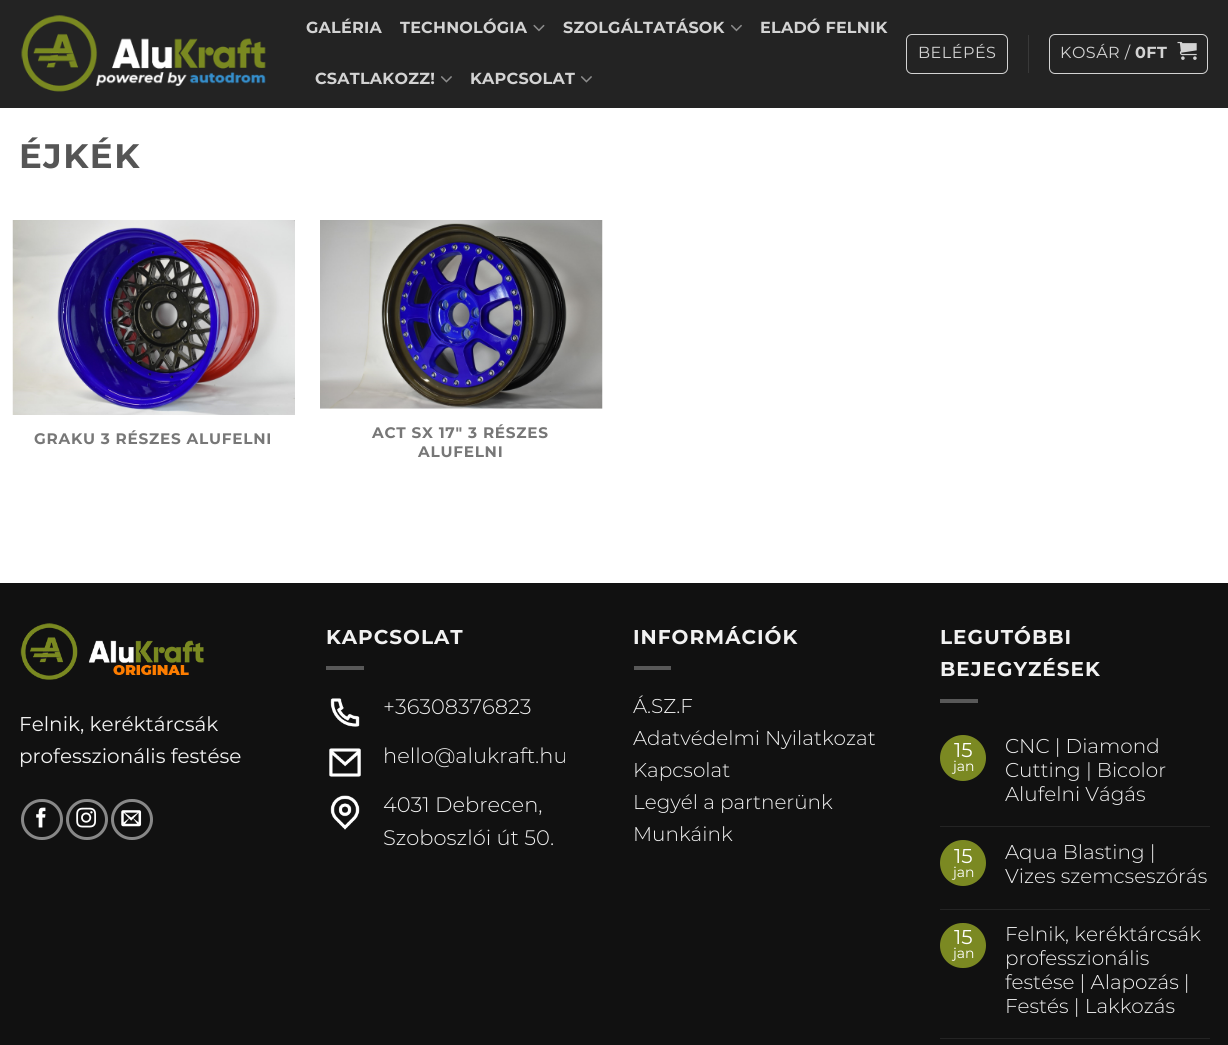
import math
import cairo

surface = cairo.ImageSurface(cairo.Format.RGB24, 1228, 1045)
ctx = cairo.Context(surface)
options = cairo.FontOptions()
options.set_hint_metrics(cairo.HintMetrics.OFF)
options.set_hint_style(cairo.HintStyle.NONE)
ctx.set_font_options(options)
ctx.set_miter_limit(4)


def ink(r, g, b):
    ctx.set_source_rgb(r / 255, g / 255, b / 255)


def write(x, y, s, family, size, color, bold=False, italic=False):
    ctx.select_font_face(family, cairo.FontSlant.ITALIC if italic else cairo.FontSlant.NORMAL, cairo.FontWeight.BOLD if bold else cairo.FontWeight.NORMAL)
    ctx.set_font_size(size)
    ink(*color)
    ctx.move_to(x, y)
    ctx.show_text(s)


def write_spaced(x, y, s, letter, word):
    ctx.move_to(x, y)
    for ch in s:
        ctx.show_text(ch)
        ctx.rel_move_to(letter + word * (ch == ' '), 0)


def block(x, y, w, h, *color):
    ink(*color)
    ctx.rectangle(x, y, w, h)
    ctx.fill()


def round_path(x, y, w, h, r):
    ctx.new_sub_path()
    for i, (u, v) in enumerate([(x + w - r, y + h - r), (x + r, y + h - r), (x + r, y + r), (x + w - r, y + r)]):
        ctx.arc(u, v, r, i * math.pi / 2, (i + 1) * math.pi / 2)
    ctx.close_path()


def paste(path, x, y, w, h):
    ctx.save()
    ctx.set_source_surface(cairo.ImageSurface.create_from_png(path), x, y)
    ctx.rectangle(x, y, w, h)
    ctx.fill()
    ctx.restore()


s1 = dict(family="Montserrat", size=20, color=(241, 241, 241))
s2 = dict(family="Montserrat Light", size=21, color=(241, 241, 241))
s3 = dict(family="Montserrat Light", size=20, color=(241, 241, 241))
s4 = dict(family="Montserrat", size=20, color=(255, 255, 255))
s5 = dict(family="Montserrat", size=14, color=(255, 255, 255))

ink(255, 255, 255)
ctx.paint()
block(0, 0, 1228, 108, 35, 35, 35)
paste("pic1.png", 21, 15, 245, 77)
ctx.select_font_face("Montserrat", cairo.FontSlant.NORMAL, cairo.FontWeight.BOLD)
ctx.set_font_size(16)
ink(211, 211, 211)
write_spaced(306, 33, "GALÉRIA", 0.25, 0)
write_spaced(400, 33, "TECHNOLÓGIA", 0.25, 0)
paste("pic2.png", 533, 24, 12, 8)
write_spaced(563, 33, "SZOLGÁLTATÁSOK", 0.25, 0)
paste("pic3.png", 731, 24, 11, 8)
write_spaced(760, 33, "ELADÓ FELNIK", 0.25, 0)
write_spaced(315, 84, "CSATLAKOZZ!", 0.25, 0)
paste("pic4.png", 441, 76, 11, 7)
write_spaced(470, 84, "KAPCSOLAT", 0.25, 0)
paste("pic4.png", 581, 76, 11, 7)
round_path(906.5, 34.5, 101, 39, 5.5)
ctx.set_line_width(1)
ctx.stroke()
ctx.select_font_face("Montserrat")
write_spaced(918, 58, "BELÉPÉS", 0.5, 0)
block(1028, 35, 1, 38, 57, 57, 57)
round_path(1049.5, 34.5, 158, 39, 5.5)
ink(211, 211, 211)
ctx.stroke()
write_spaced(1060, 58, "KOSÁR /", 0.5, 0)
ctx.select_font_face("Montserrat", cairo.FontSlant.NORMAL, cairo.FontWeight.BOLD)
write_spaced(1135, 58, "0FT", 0.5, 0)
paste("pic5.png", 1177, 41, 20, 19)
ctx.set_font_size(34)
ink(85, 85, 85)
write_spaced(19, 168, "ÉJKÉK", 1.5, 0)
paste("pic6.png", 12, 220, 283, 195)
ctx.set_font_size(15.25)
ink(119, 119, 119)
write_spaced(34, 444, "GRAKU 3 RÉSZES ALUFELNI", 0.75, 0)
paste("pic7.png", 320, 220, 283, 189)
write_spaced(372, 438, "ACT SX 17″ 3 RÉSZES", 0.75, 0)
write_spaced(418, 457, "ALUFELNI", 0.75, 0)
block(0, 583, 1228, 462, 17, 17, 17)
paste("pic8.png", 20, 623, 184, 57)
write(19, 731, "Felnik, keréktárcsák", **s1)
write(19, 763, "professzionális festése", **s1)
round_path(22.5, 800.5, 39, 38, 19)
ink(136, 136, 136)
ctx.set_line_width(3)
ctx.stroke()
paste("pic9.png", 36, 807, 10, 21)
round_path(67.5, 800.5, 39, 38, 19)
ctx.stroke()
paste("pic10.png", 76, 807, 20, 21)
round_path(112.5, 800.5, 39, 38, 19)
ctx.stroke()
paste("pic11.png", 121, 810, 21, 17)
ctx.select_font_face("Montserrat", cairo.FontSlant.NORMAL, cairo.FontWeight.BOLD)
ink(241, 241, 241)
write_spaced(326, 644, "KAPCSOLAT", 1, 0)
block(326, 666, 38, 4, 88, 88, 88)
paste("pic12.png", 330, 698, 30, 29)
write(383, 714, "+36308376823", **s2)
paste("pic13.png", 329, 748, 32, 29)
write(383, 763, "hello@alukraft.hu", **s2)
paste("pic14.png", 330, 795, 30, 35)
write(383, 812, "4031 Debrecen,", **s2)
write(383, 845, "Szoboszlói út 50.", **s2)
ctx.select_font_face("Montserrat", cairo.FontSlant.NORMAL, cairo.FontWeight.BOLD)
ctx.set_font_size(20)
write_spaced(633, 644, "INFORMÁCIÓK", 1, 0)
block(634, 666, 37, 4, 88, 88, 88)
write(633, 713, "Á.SZ.F", **s3)
write(633, 745, "Adatvédelmi Nyilatkozat", **s3)
write(633, 777, "Kapcsolat", **s3)
write(633, 809, "Legyél a partnerünk", **s3)
write(633, 841, "Munkáink", **s3)
ctx.select_font_face("Montserrat", cairo.FontSlant.NORMAL, cairo.FontWeight.BOLD)
write_spaced(940, 644, "LEGUTÓBBI", 1, 0)
write_spaced(940, 676, "BEJEGYZÉSEK", 1, 0)
block(940, 699, 38, 4, 88, 88, 88)
ink(123, 137, 34)
ctx.new_path()
ctx.arc(963, 758, 23, 0, 2 * math.pi)
ctx.fill()
write(954, 757, "15", **s4)
write(953, 771, "jan", **s5)
write(1005, 753, "CNC | Diamond", **s3)
write(1005, 777, "Cutting | Bicolor", **s3)
write(1005, 801, "Alufelni Vágás", **s3)
block(940, 826, 270, 1, 36, 36, 36)
ink(123, 137, 34)
ctx.new_path()
ctx.arc(963, 863, 23, 0, 2 * math.pi)
ctx.fill()
write(954, 863, "15", **s4)
write(953, 877, "jan", **s5)
write(1005, 859, "Aqua Blasting |", **s3)
write(1005, 883, "Vizes szemcseszórás", **s3)
block(940, 909, 270, 1, 36, 36, 36)
ink(123, 137, 34)
round_path(940, 923, 46, 45, 22.5)
ctx.fill()
write(954, 944, "15", **s4)
write(953, 958, "jan", **s5)
write(1005, 941, "Felnik, keréktárcsák", **s3)
write(1005, 965, "professzionális", **s3)
write(1005, 989, "festése | Alapozás |", **s3)
write(1005, 1013, "Festés | Lakkozás", **s3)
block(940, 1038, 270, 1, 36, 36, 36)
surface.write_to_png("screenshot.png")
